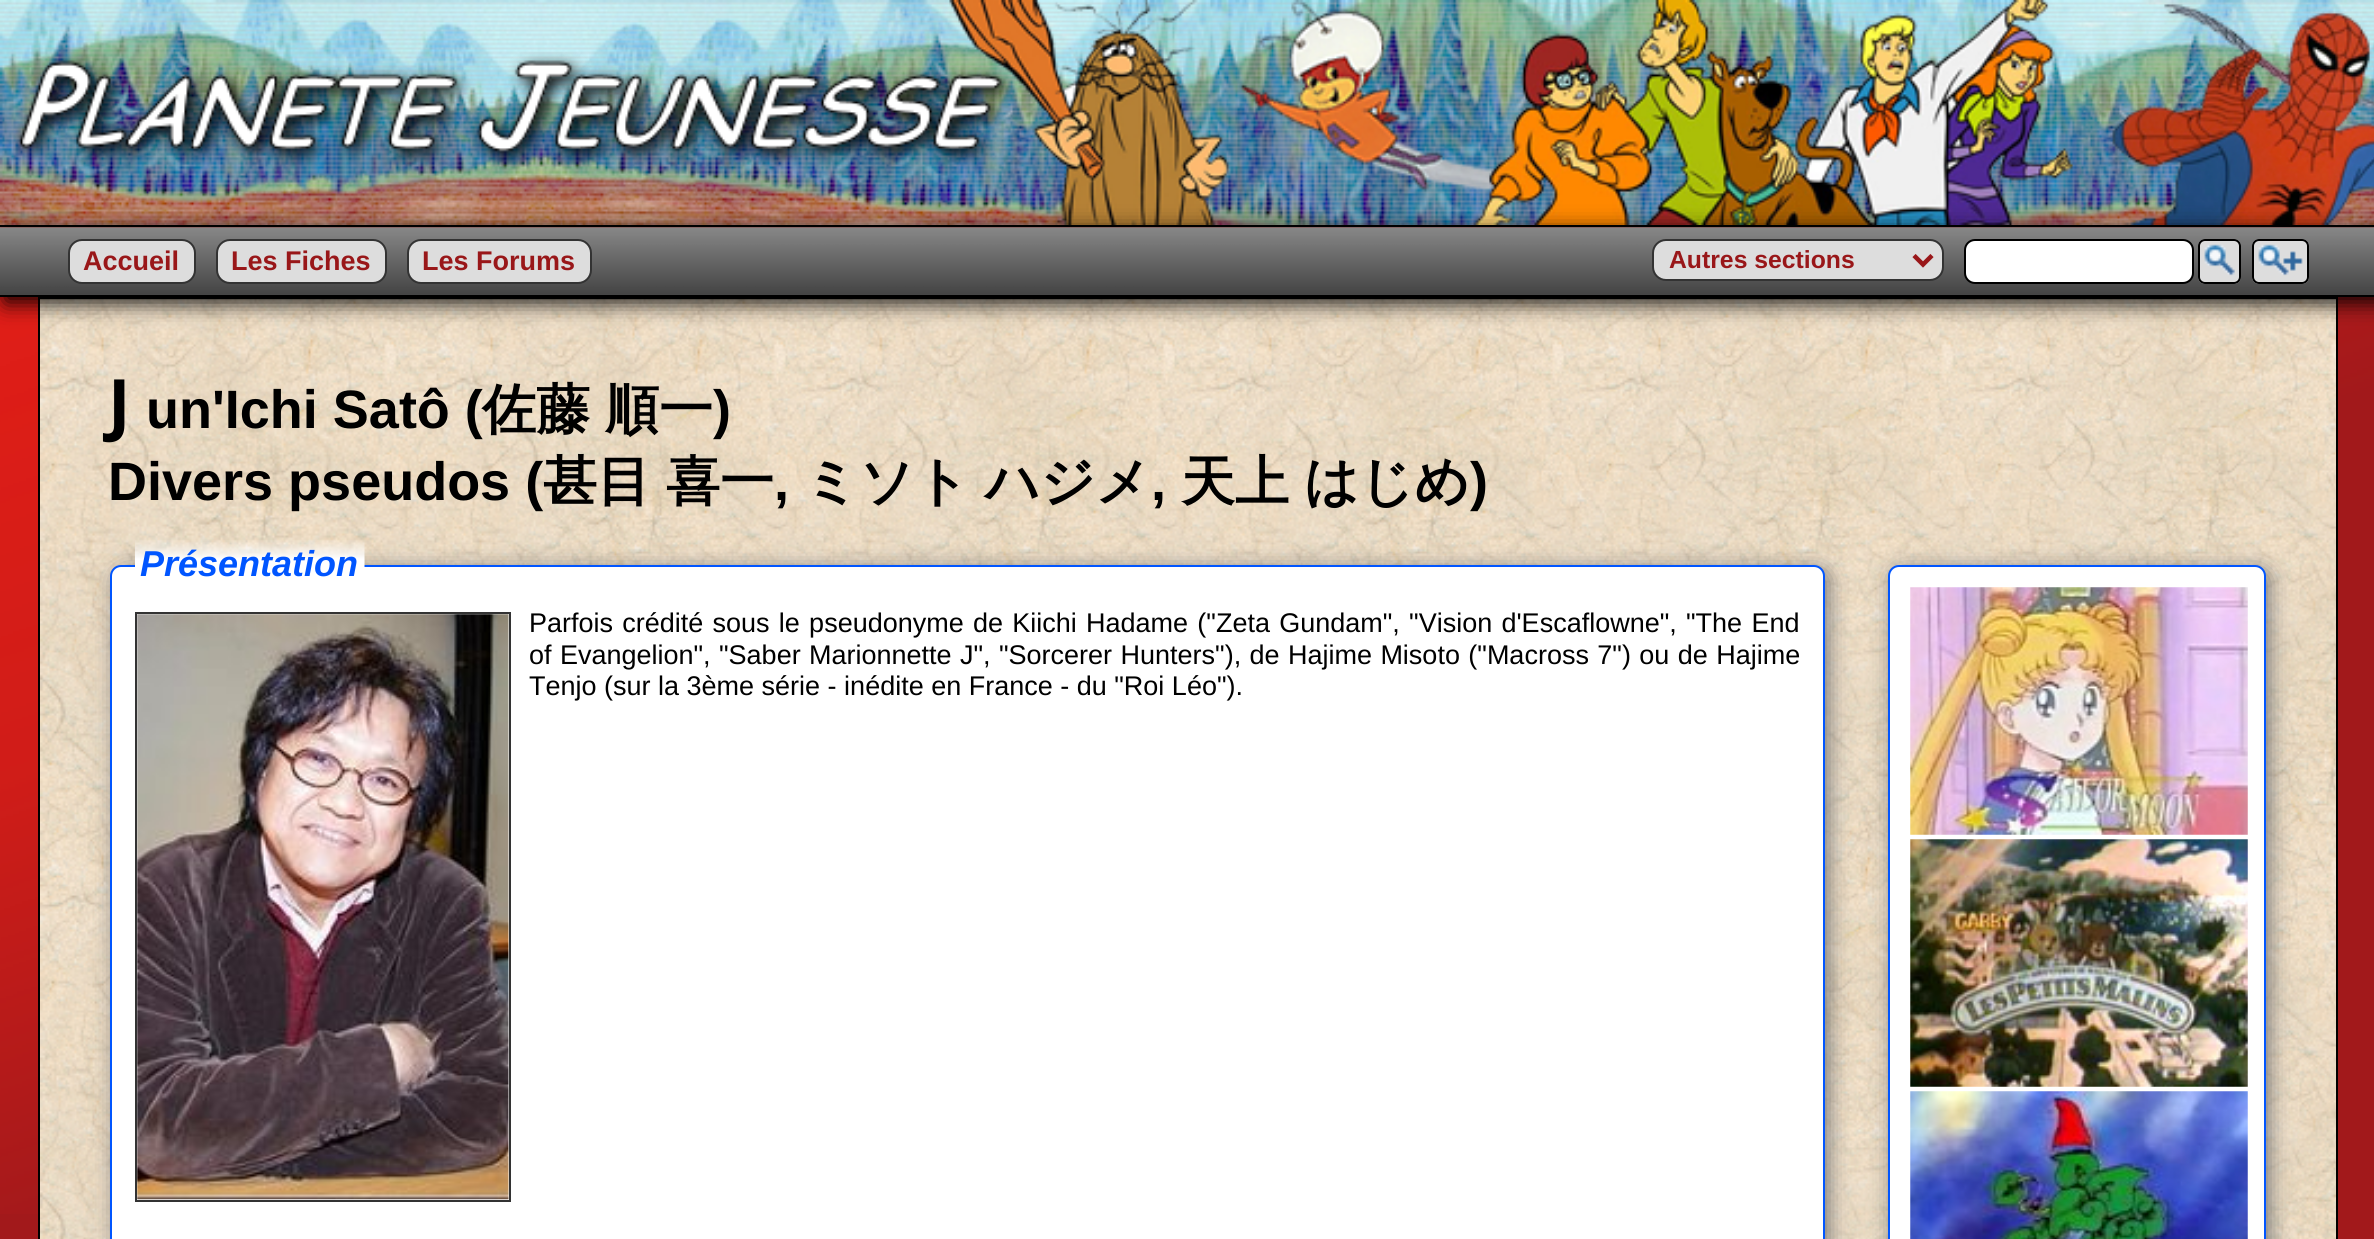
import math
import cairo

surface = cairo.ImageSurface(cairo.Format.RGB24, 2374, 1239)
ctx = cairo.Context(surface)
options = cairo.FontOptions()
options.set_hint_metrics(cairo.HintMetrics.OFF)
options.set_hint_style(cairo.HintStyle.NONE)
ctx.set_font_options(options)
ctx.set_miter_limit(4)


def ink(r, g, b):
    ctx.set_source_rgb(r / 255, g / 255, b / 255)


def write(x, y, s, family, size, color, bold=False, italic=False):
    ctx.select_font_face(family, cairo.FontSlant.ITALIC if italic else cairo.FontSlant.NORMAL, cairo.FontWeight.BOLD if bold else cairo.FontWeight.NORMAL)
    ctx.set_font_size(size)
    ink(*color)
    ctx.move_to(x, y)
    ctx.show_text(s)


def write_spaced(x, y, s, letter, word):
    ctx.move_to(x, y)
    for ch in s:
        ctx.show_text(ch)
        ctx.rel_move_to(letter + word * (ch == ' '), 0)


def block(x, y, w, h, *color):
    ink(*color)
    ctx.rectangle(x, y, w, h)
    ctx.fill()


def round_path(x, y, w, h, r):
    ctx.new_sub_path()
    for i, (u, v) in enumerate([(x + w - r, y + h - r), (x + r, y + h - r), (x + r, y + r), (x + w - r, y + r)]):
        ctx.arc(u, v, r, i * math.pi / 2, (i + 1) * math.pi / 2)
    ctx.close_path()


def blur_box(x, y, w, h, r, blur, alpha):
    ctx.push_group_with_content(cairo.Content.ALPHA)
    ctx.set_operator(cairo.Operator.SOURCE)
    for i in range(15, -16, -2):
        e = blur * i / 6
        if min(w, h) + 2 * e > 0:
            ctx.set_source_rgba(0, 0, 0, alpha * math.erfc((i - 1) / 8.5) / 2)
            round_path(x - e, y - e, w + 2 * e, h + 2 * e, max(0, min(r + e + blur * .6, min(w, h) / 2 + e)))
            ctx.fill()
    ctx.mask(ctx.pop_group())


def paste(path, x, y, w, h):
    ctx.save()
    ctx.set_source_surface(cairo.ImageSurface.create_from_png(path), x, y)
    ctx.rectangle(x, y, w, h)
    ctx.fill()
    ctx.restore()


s1 = dict(family="Liberation Sans", size=27, color=(153, 23, 25), bold=True)
s2 = dict(family="Liberation Sans", size=24.75, color=(153, 23, 25), bold=True)
s3 = dict(family="Noto Sans", size=68, color=(0, 0, 0), bold=True)
s4 = dict(family="Liberation Sans", size=54, color=(0, 0, 0), bold=True)
s5 = dict(family="WenQuanYi Zen Hei", size=54, color=(0, 0, 0), bold=True)
s6 = dict(family="Liberation Sans", size=36, color=(0, 85, 255), bold=True, italic=True)
s7 = dict(family="Liberation Sans", size=27, color=(0, 0, 0))

ink(162, 25, 27)
ctx.paint()
paste("pic1.png", 0, 227, 2374, 987)
paste("pic2.png", 0, 0, 2374, 225)
block(0, 225, 2374, 2, 0, 0, 0)
paste("pic3.png", 12, 52, 1005, 118)
paste("pic7.png", 40, 299, 2296, 940)
ctx.rectangle(39, 298, 2298, 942)
ctx.stroke()
ink(0, 0, 0)
blur_box(5, 232, 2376, 70, 0, 11, 1)
paste("pic4.png", 0, 227, 2374, 68)
block(0, 295, 2374, 2, 0, 0, 0)
ink(221, 221, 221)
round_path(69, 240, 126, 43, 13)
ctx.fill_preserve()
ink(51, 51, 51)
ctx.stroke()
write(83, 270, "Accueil", **s1)
ink(221, 221, 221)
round_path(217, 240, 169, 43, 13)
ctx.fill_preserve()
ink(51, 51, 51)
ctx.stroke()
write(231, 270, "Les Fiches", **s1)
ink(221, 221, 221)
round_path(408, 240, 183, 43, 13)
ctx.fill_preserve()
ink(51, 51, 51)
ctx.stroke()
write(422, 270, "Les Forums", **s1)
ink(221, 221, 221)
round_path(1653, 240, 290, 40, 13)
ctx.fill_preserve()
ink(51, 51, 51)
ctx.stroke()
ctx.new_path()
ctx.move_to(1914, 255.5)
ctx.line_to(1923, 264.5)
ctx.line_to(1932, 255.5)
ink(153, 23, 25)
ctx.set_line_width(4.5)
ctx.stroke()
write(1669, 268, "Autres sections", **s2)
ink(255, 255, 255)
round_path(1965, 240, 228, 43, 10)
ctx.fill_preserve()
ink(0, 0, 0)
ctx.set_line_width(2)
ctx.stroke()
ink(221, 221, 221)
round_path(2198, 239, 43, 45, 7)
ctx.fill()
paste("pic5.png", 2204, 244, 31, 32)
round_path(2199, 240, 41, 43, 6)
ink(0, 0, 0)
ctx.stroke()
ink(221, 221, 221)
round_path(2252, 239, 57, 45, 7)
ctx.fill()
paste("pic6.png", 2258, 244, 45, 32)
round_path(2253, 240, 55, 43, 6)
ink(0, 0, 0)
ctx.stroke()
write(108, 428, "J", **s3)
write(146, 428, "un'Ichi Satô (", **s4)
write(482, 428, "佐藤", **s5)
write(605, 428, "順一", **s5)
write(713, 428, ")", **s4)
write(108, 500, "Divers pseudos (", **s4)
write(543, 500, "甚目", **s5)
write(666, 500, "喜一", **s5)
write(774, 500, ",", **s4)
write(804, 500, "ミソト", **s5)
write(985, 500, "ハジメ", **s5)
write(1151, 500, ",", **s4)
write(1181, 500, "天上", **s5)
write(1304, 500, "はじめ", **s5)
write(1470, 500, ")", **s4)
ink(119, 119, 119)
blur_box(115, 569, 1714, 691, 11, 11, 1)
ink(255, 255, 255)
round_path(111, 566, 1713, 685, 10)
ctx.fill_preserve()
ink(0, 85, 255)
ctx.stroke()
paste("pic8.png", 135, 540, 230, 27)
write(140, 576, "Présentation", **s6)
ctx.rectangle(136, 613, 374, 588)
ink(51, 51, 51)
ctx.stroke()
paste("pic9.png", 137, 614, 372, 586)
ctx.select_font_face("Liberation Sans")
ctx.set_font_size(27)
ink(0, 0, 0)
write_spaced(529, 632, "Parfois crédité sous le pseudonyme de Kiichi Hadame (\"Zeta Gundam\", \"Vision d'Escaflowne\", \"The End", 0, 1.75)
write_spaced(529, 664, "of Evangelion\", \"Saber Marionnette J\", \"Sorcerer Hunters\"), de Hajime Misoto (\"Macross 7\") ou de Hajime", 0, 0.9)
write(529, 695, "Tenjo (sur la 3ème série - inédite en France - du \"Roi Léo\").", **s7)
ink(119, 119, 119)
blur_box(1892, 569, 378, 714, 11, 11, 1)
ink(255, 255, 255)
round_path(1889, 566, 376, 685, 10)
ctx.fill_preserve()
ink(0, 85, 255)
ctx.stroke()
paste("pic10.png", 1910, 587, 338, 248)
paste("pic11.png", 1910, 839, 338, 248)
paste("pic12.png", 1910, 1091, 338, 148)
surface.write_to_png("screenshot.png")
